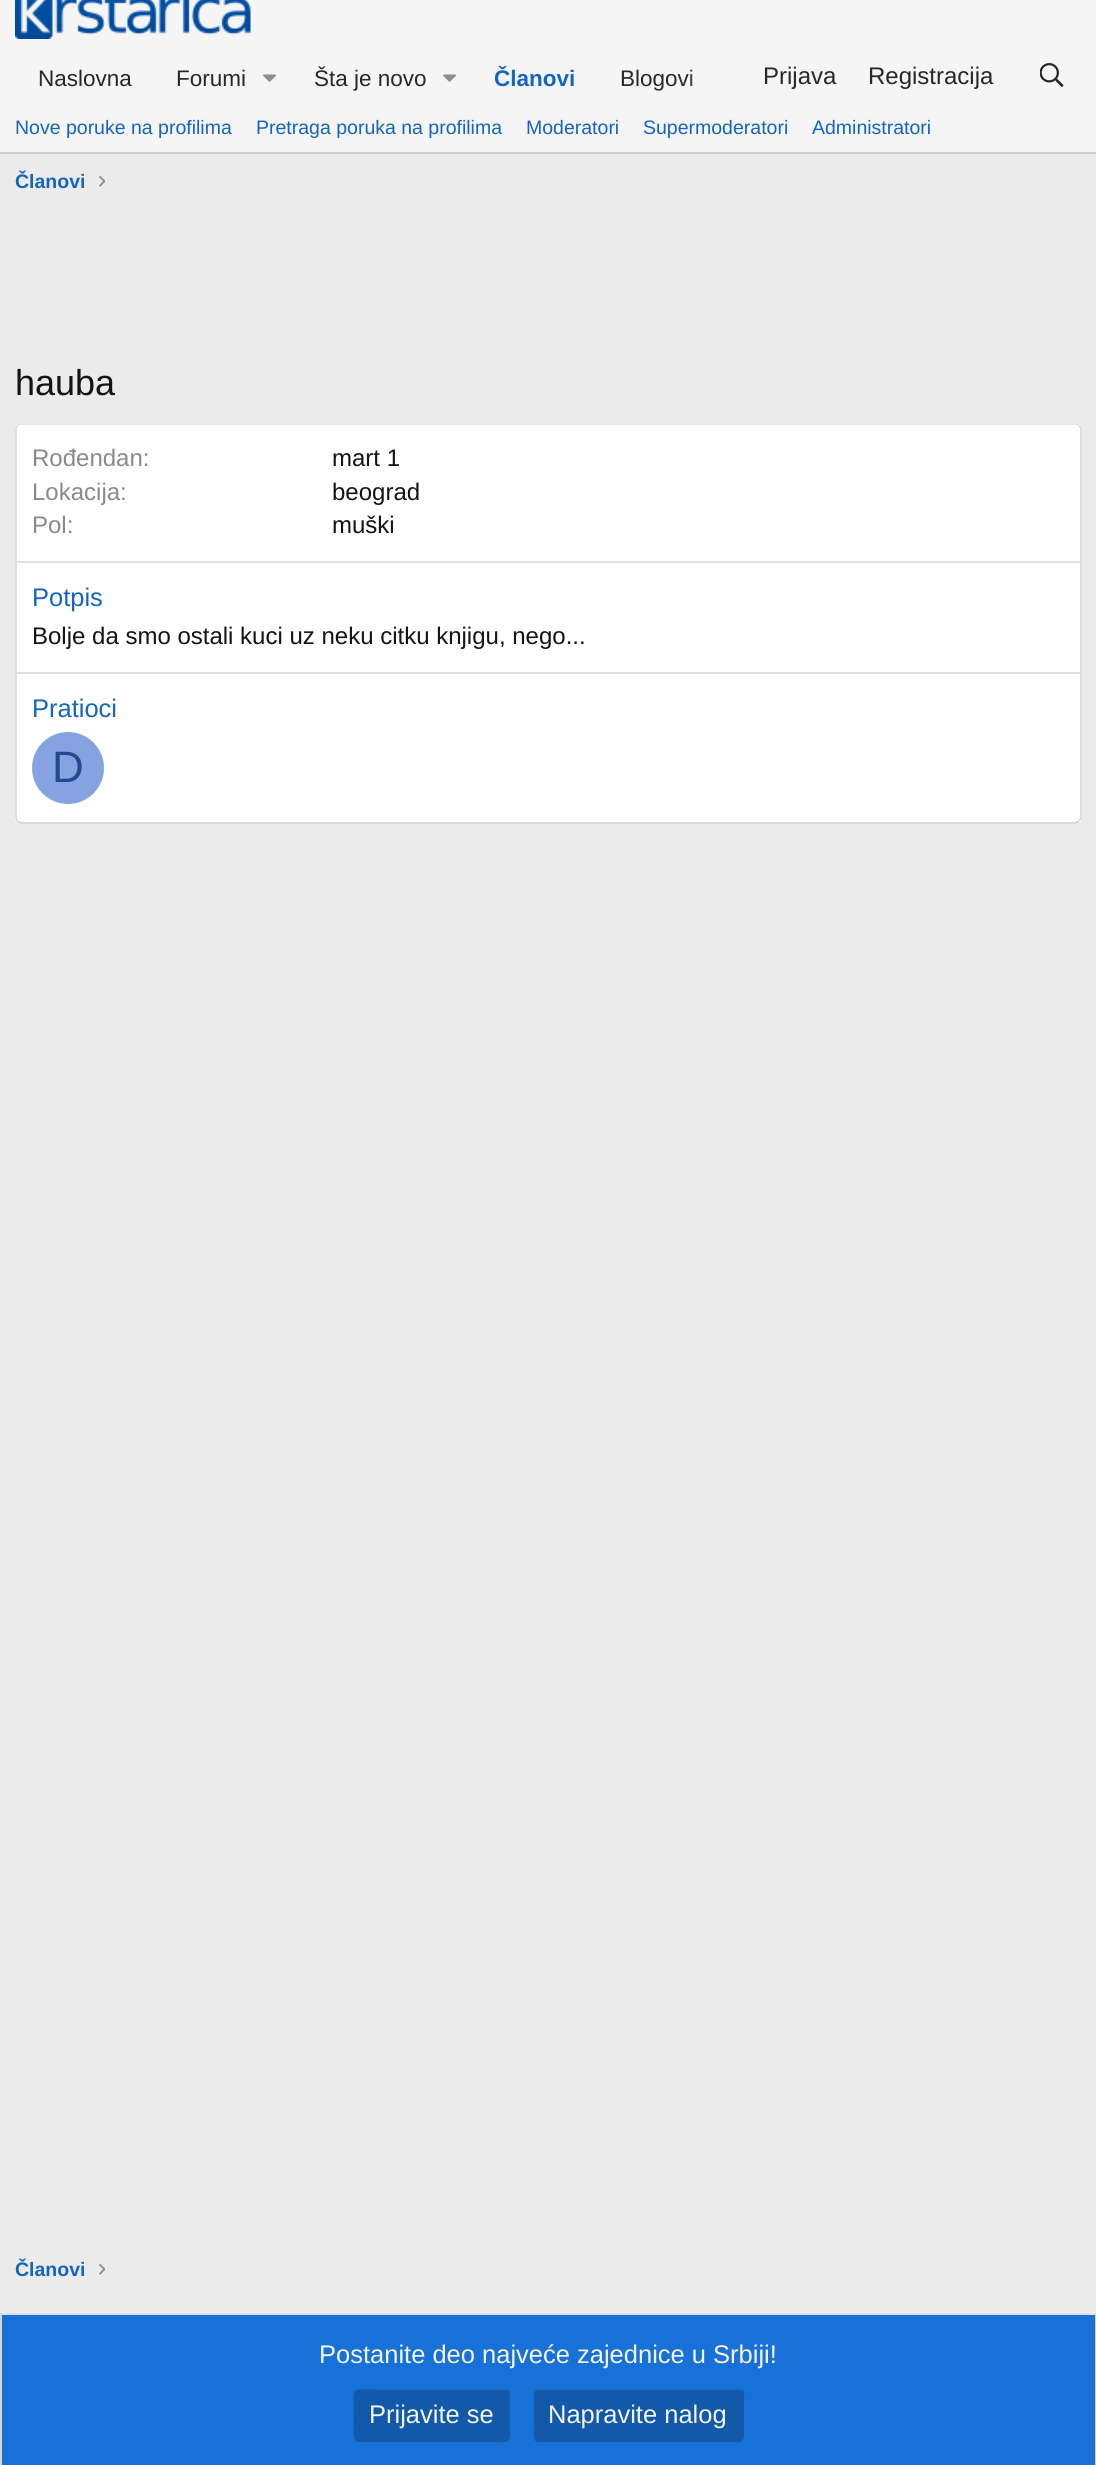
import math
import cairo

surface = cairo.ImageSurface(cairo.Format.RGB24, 1096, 2465)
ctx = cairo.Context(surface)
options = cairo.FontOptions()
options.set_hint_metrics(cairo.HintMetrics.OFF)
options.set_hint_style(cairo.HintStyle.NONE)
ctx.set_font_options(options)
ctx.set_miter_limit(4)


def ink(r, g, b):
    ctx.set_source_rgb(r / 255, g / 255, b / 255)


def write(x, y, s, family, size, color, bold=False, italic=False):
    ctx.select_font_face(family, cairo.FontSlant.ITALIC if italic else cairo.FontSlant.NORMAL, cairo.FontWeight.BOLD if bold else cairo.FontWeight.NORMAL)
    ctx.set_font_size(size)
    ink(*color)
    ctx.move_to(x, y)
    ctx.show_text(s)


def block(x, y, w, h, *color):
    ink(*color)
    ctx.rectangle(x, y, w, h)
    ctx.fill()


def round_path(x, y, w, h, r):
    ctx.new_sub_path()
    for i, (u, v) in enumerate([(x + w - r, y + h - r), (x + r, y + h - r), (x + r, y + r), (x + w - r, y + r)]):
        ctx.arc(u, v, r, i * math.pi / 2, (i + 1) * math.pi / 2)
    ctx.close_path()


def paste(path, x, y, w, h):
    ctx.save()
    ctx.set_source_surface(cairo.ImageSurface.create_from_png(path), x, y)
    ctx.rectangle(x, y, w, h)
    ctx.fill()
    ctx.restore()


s1 = dict(family="Liberation Sans", size=22.5, color=(38, 40, 42))
s2 = dict(family="Liberation Sans", size=22.5, color=(21, 101, 192), bold=True)
s3 = dict(family="Liberation Sans", size=24, color=(38, 40, 42))
s4 = dict(family="Liberation Sans", size=19.5, color=(21, 101, 192))
s5 = dict(family="Liberation Sans", size=19.5, color=(21, 101, 192), bold=True)
s6 = dict(family="Liberation Sans", size=36, color=(20, 20, 20))
s7 = dict(family="Liberation Sans", size=24, color=(138, 138, 138))
s8 = dict(family="Liberation Sans", size=24, color=(20, 20, 20))
s9 = dict(family="Liberation Sans", size=25.5, color=(21, 101, 192))
s10 = dict(family="Liberation Sans", size=44, color=(36, 71, 143))
s11 = dict(family="Liberation Sans", size=25.5, color=(245, 245, 245))

ink(235, 235, 235)
ctx.paint()
block(0, 0, 1096, 48, 245, 245, 245)
paste("pic1.png", 15, 0, 236, 39)
block(0, 48, 1096, 104, 245, 245, 245)
write(38, 86, "Naslovna", **s1)
write(176, 86, "Forumi", **s1)
paste("pic2.png", 263, 74, 13, 8)
write(314, 86, "Šta je novo", **s1)
paste("pic2.png", 443, 74, 13, 8)
write(494, 86, "Članovi", **s2)
write(620, 86, "Blogovi", **s1)
gradient = cairo.LinearGradient(689, 77, 749, 77)
gradient.add_color_stop_rgba(0, 0.961, 0.961, 0.961, 0)
gradient.add_color_stop_rgba(0.33, 0.961, 0.961, 0.961, 1)
ctx.set_source(gradient)
ctx.rectangle(690, 69, 3, 17)
ctx.fill()
write(763, 84, "Prijava", **s3)
write(868, 84, "Registracija", **s3)
paste("pic3.png", 1040, 63, 24, 24)
block(0, 152, 1096, 2, 204, 204, 204)
write(15, 134, "Nove poruke na profilima", **s4)
write(256, 134, "Pretraga poruka na profilima", **s4)
write(526, 134, "Moderatori", **s4)
write(643, 134, "Supermoderatori", **s4)
write(812, 134, "Administratori", **s4)
write(15, 188, "Članovi", **s5)
paste("pic4.png", 99, 175, 6, 12)
write(15, 395, "hauba", **s6)
ink(255, 255, 255)
round_path(15, 423, 1067, 401, 6)
ctx.fill()
ctx.new_path()
ctx.move_to(17.5, 425.5)
ctx.curve_to(18.5, 424.5, 19.5, 424, 21, 424)
ctx.line_to(1075.5, 424)
ctx.curve_to(1077, 424, 1078, 424.5, 1079, 425.5)
ink(224, 224, 224)
ctx.set_line_width(1.5)
ctx.stroke()
ctx.new_path()
ctx.move_to(1079, 425.5)
ctx.curve_to(1080, 426.5, 1081, 427.5, 1081, 429)
ctx.line_to(1081, 817.5)
ctx.curve_to(1081, 819, 1080, 820, 1079, 821)
ink(214, 214, 214)
ctx.stroke()
ctx.new_path()
ctx.move_to(1079, 821)
ctx.curve_to(1078, 822, 1077, 823, 1075.5, 823)
ctx.line_to(21, 823)
ctx.curve_to(19.5, 823, 18.5, 822, 17.5, 821)
ink(204, 204, 204)
ctx.stroke()
ctx.new_path()
ctx.move_to(17.5, 821)
ctx.curve_to(16.5, 820, 16, 819, 16, 817.5)
ctx.line_to(16, 429)
ctx.curve_to(16, 427.5, 16.5, 426.5, 17.5, 425.5)
ink(214, 214, 214)
ctx.stroke()
write(32, 466, "Rođendan:", **s7)
write(332, 466, "mart 1", **s8)
write(32, 500, "Lokacija:", **s7)
write(332, 500, "beograd", **s8)
write(32, 533, "Pol:", **s7)
write(332, 533, "muški", **s8)
block(17, 561, 1063, 2, 224, 224, 224)
write(32, 606, "Potpis", **s9)
write(32, 644, "Bolje da smo ostali kuci uz neku citku knjigu, nego...", **s8)
block(17, 672, 1063, 2, 224, 224, 224)
write(32, 717, "Pratioci", **s9)
ink(133, 163, 224)
ctx.new_path()
ctx.arc(68, 768, 36, 0, 2 * math.pi)
ctx.fill()
write(52, 782, "D", **s10)
write(15, 2276, "Članovi", **s5)
paste("pic4.png", 99, 2263, 6, 12)
block(2, 2315, 1093, 150, 24, 113, 215)
block(0, 2313, 1096, 2, 224, 224, 224)
block(1095, 2313, 1, 152, 214, 214, 214)
block(0, 2313, 2, 152, 214, 214, 214)
write(319, 2363, "Postanite deo najveće zajednice u Srbiji!", **s11)
ink(18, 89, 169)
round_path(353, 2388, 157, 54, 6)
ctx.fill()
ctx.new_path()
ctx.move_to(507.5, 2390.5)
ctx.curve_to(510.5, 2393, 509, 2398, 509, 2401)
ctx.line_to(509, 2415)
ctx.curve_to(509, 2447, 514, 2441, 480, 2441)
ctx.line_to(358.5, 2441)
ctx.curve_to(357, 2441, 356, 2440.5, 355, 2439.5)
ctx.stroke()
ctx.new_path()
ctx.move_to(355, 2439.5)
ctx.curve_to(352, 2437, 353, 2432, 353, 2429)
ctx.line_to(353, 2415)
ctx.curve_to(353, 2383, 348.5, 2389, 383, 2389)
ctx.line_to(504, 2389)
ctx.curve_to(505.5, 2389, 506.5, 2389.5, 507.5, 2390.5)
ink(24, 113, 215)
ctx.stroke()
write(369, 2423, "Prijavite se", **s11)
ink(18, 89, 169)
round_path(533, 2388, 211, 54, 6)
ctx.fill()
ctx.new_path()
ctx.move_to(741.5, 2390.5)
ctx.curve_to(744.5, 2393, 743, 2398, 743, 2401)
ctx.line_to(743, 2429)
ctx.curve_to(743, 2433, 744.5, 2441, 738, 2441)
ctx.line_to(538, 2441)
ctx.line_to(535, 2439.5)
ctx.stroke()
ctx.new_path()
ctx.move_to(535, 2439.5)
ctx.curve_to(532, 2437, 533, 2432, 533, 2429)
ctx.line_to(533, 2401)
ctx.curve_to(533, 2397, 532, 2389, 538.5, 2389)
ctx.line_to(738.5, 2389)
ctx.line_to(741.5, 2390.5)
ink(24, 113, 215)
ctx.stroke()
write(548, 2423, "Napravite nalog", **s11)
surface.write_to_png("screenshot.png")
